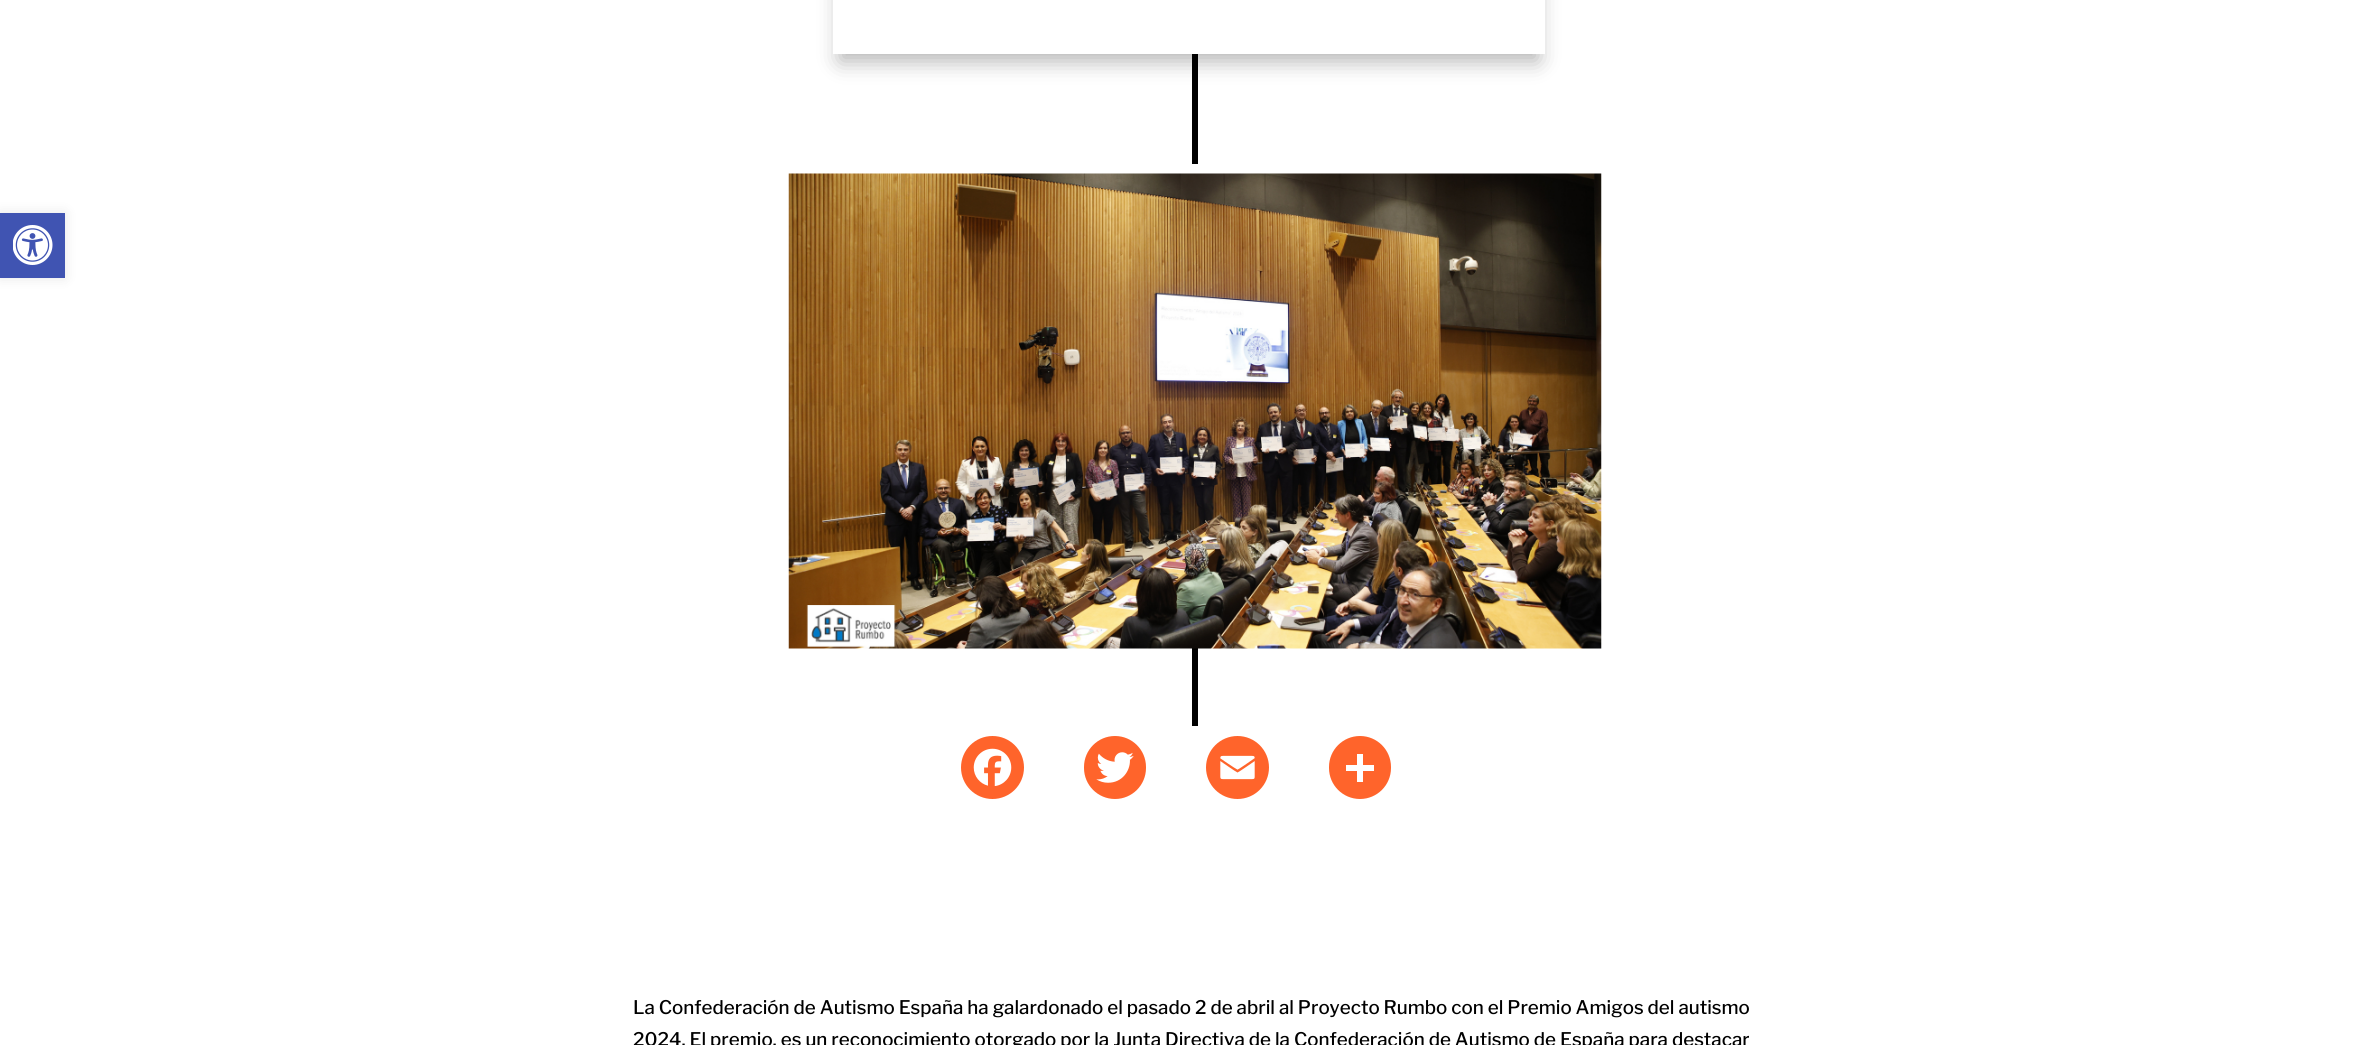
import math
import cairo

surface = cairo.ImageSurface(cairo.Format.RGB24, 2377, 1045)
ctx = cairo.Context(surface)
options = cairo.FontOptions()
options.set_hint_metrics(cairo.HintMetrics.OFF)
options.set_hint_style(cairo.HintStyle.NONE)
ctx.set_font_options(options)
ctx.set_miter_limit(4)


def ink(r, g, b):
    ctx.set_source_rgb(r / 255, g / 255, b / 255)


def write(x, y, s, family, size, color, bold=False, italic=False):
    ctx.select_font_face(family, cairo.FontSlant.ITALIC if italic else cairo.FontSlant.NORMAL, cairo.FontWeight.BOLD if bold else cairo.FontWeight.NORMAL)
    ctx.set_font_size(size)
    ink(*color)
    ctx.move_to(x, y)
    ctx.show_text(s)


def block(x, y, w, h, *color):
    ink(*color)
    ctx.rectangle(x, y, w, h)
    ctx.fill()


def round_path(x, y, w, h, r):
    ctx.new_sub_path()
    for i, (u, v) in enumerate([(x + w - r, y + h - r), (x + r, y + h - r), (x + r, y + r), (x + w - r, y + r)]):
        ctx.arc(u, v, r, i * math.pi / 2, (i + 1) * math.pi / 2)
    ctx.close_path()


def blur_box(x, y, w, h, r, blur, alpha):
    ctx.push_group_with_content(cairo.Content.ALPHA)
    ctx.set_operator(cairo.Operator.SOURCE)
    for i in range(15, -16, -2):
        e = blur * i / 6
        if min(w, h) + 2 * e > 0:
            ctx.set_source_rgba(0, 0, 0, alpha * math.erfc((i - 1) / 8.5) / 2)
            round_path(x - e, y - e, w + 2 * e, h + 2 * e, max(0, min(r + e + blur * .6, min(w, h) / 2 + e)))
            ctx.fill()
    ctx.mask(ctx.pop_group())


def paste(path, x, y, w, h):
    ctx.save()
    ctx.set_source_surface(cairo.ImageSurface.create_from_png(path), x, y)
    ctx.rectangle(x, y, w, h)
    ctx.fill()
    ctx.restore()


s1 = dict(family="Libre Franklin Medium", size=18.75, color=(0, 0, 0))

ink(255, 255, 255)
ctx.paint()
ink(0, 0, 0)
blur_box(0, 213, 65, 65, 0, 6, 0.1)
block(0, 213, 65, 65, 64, 84, 178)
paste("pic1.png", 13, 225, 40, 40)
block(1192, 51, 6, 113, 0, 0, 0)
ink(0, 0, 0)
blur_box(840, -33, 698, 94, 0, 11, 0.3)
block(833, 0, 712, 54, 255, 255, 255)
block(1192, 648, 6, 78, 0, 0, 0)
paste("pic2.png", 788, 173, 814, 476)
ink(255, 100, 43)
ctx.arc(992.5, 767.5, 31.5, 0, 2 * math.pi)
ctx.fill()
paste("pic3.png", 973, 748, 39, 38)
round_path(1084, 736, 62, 63, 31)
ctx.fill()
paste("pic4.png", 1096, 752, 38, 31)
ctx.arc(1237.5, 767.5, 31.5, 0, 2 * math.pi)
ctx.fill()
paste("pic5.png", 1220, 755, 35, 25)
round_path(1329, 736, 62, 63, 31)
ctx.fill()
block(1357, 754, 6, 28, 255, 255, 255)
block(1346, 765, 28, 6, 255, 255, 255)
write(633, 1014, "La Confederación de Autismo España ha galardonado el pasado 2 de abril al Proyecto Rumbo con el Premio Amigos del autismo", **s1)
write(633, 1046, "2024. El premio, es un reconocimiento otorgado por la Junta Directiva de la Confederación de Autismo de España para destacar", **s1)
surface.write_to_png("screenshot.png")
